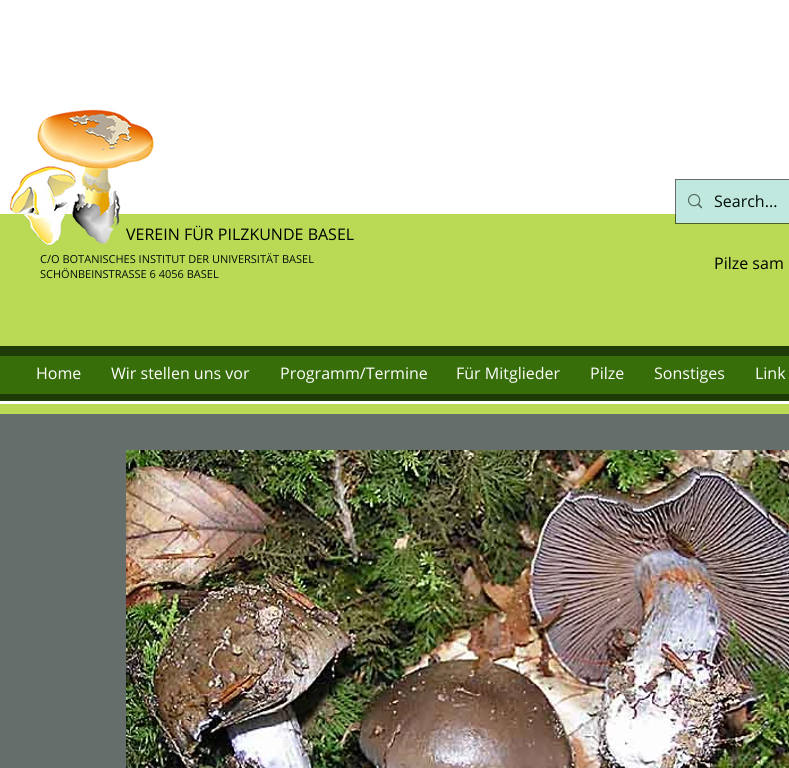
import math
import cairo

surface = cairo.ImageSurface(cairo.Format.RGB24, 789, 768)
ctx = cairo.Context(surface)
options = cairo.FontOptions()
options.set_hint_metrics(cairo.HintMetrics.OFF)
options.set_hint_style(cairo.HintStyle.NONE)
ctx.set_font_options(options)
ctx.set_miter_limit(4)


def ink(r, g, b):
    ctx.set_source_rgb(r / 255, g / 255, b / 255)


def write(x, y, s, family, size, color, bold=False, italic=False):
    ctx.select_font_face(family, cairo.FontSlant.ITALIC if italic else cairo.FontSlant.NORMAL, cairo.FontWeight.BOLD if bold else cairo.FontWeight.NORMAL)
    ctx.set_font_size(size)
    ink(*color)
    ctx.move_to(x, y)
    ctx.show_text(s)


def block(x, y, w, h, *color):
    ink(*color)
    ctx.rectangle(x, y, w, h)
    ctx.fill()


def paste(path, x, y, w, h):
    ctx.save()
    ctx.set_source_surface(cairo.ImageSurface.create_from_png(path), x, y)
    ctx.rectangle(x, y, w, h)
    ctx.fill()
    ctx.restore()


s1 = dict(family="Open Sans", size=16, color=(0, 0, 0))
s2 = dict(family="Open Sans", size=16, color=(0, 13, 9))
s3 = dict(family="Open Sans", size=11, color=(0, 13, 9))
s4 = dict(family="Open Sans", size=16, color=(255, 255, 255))

ink(255, 255, 255)
ctx.paint()
block(0, 214, 789, 132, 186, 218, 85)
write(126, 240, "VEREIN FÜR PILZKUNDE BASEL", **s1)
paste("pic1.png", 10, 109, 144, 137)
ctx.rectangle(675.5, 179.5, 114, 44)
ctx.set_source_rgba(0, 0.051, 0.035, 0.6)
ctx.set_line_width(1)
ctx.stroke()
block(676, 180, 113, 43, 192, 232, 222)
paste("pic2.png", 688, 194, 14, 15)
write(714, 207, "Search...", **s2)
write(40, 263, "C/O BOTANISCHES INSTITUT DER UNIVERSITÄT BASEL", **s3)
write(40, 278, "SCHÖNBEINSTRASSE 6 4056 BASEL", **s3)
write(714, 269, "Pilze sam", **s1)
block(0, 346, 789, 10, 31, 59, 8)
block(0, 356, 789, 38, 55, 110, 9)
write(36, 379, "Home", **s4)
write(111, 379, "Wir stellen uns vor", **s4)
write(280, 379, "Programm/Termine", **s4)
write(456, 379, "Für Mitglieder", **s4)
write(590, 379, "Pilze", **s4)
write(654, 379, "Sonstiges", **s4)
write(755, 379, "Link", **s4)
block(0, 394, 789, 7, 31, 59, 8)
block(0, 404, 789, 10, 186, 218, 85)
block(0, 414, 789, 354, 102, 110, 108)
paste("pic3.png", 126, 450, 663, 318)
surface.write_to_png("screenshot.png")
